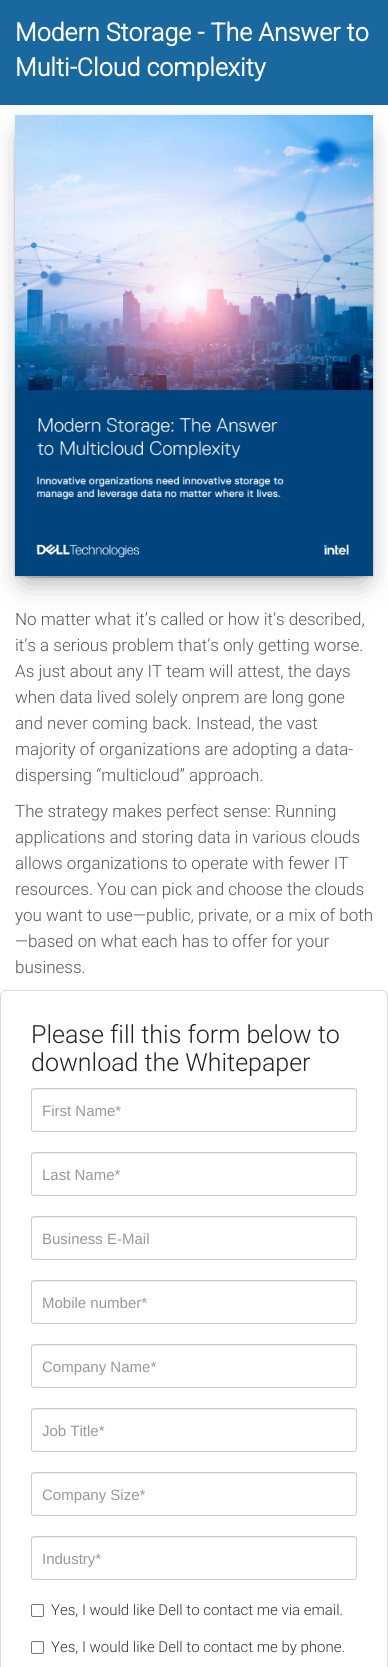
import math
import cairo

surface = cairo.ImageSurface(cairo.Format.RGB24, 388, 1667)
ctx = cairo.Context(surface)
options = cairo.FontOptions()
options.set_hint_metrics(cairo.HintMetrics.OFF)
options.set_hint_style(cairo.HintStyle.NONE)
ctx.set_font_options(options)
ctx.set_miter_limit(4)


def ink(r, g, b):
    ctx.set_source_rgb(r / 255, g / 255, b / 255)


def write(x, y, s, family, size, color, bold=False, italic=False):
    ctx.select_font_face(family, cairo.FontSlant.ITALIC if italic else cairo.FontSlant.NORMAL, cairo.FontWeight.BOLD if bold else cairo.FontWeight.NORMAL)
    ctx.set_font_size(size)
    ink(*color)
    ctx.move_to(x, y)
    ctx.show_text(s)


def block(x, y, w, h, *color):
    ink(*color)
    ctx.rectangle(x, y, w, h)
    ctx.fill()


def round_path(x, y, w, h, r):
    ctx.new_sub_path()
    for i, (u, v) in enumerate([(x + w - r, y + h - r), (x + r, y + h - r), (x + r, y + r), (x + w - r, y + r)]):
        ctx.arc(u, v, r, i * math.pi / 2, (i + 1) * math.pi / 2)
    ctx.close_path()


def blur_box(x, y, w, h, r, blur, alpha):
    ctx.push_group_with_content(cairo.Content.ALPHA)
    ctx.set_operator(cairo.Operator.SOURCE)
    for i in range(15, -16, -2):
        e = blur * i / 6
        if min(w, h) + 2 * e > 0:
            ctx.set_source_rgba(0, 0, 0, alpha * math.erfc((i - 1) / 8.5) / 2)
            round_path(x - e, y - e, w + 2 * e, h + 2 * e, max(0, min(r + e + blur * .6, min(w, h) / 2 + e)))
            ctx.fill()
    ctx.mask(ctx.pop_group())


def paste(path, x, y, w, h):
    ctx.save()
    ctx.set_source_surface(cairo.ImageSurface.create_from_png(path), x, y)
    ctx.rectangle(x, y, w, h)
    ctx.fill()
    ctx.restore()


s1 = dict(family="Roboto", size=25, color=(255, 255, 255), bold=True)
s2 = dict(family="Roboto Light", size=17, color=(85, 85, 85))
s3 = dict(family="Roboto Light", size=25, color=(34, 34, 34))
s4 = dict(family="Liberation Sans", size=15, color=(153, 153, 153))
s5 = dict(family="Roboto Light", size=15, color=(51, 51, 51))

ink(255, 255, 255)
ctx.paint()
block(0, 0, 388, 105, 25, 105, 160)
write(15, 41, "Modern Storage - The Answer to", **s1)
write(15, 76, "Multi-Cloud complexity", **s1)
ink(0, 0, 0)
blur_box(25, 137, 338, 441, 0, 15, 0.4)
paste("pic1.png", 14, 113, 360, 465)
write(15, 625, "No matter what it’s called or how it’s described,", **s2)
write(15, 651, "it’s a serious problem that’s only getting worse.", **s2)
write(15, 677, "As just about any IT team will attest, the days", **s2)
write(15, 703, "when data lived solely onprem are long gone", **s2)
write(15, 729, "and never coming back. Instead, the vast", **s2)
write(15, 755, "majority of organizations are adopting a data-", **s2)
write(15, 781, "dispersing “multicloud” approach.", **s2)
write(15, 817, "The strategy makes perfect sense: Running", **s2)
write(15, 843, "applications and storing data in various clouds", **s2)
write(15, 869, "allows organizations to operate with fewer IT", **s2)
write(15, 895, "resources. You can pick and choose the clouds", **s2)
write(15, 921, "you want to use—public, private, or a mix of both", **s2)
write(15, 947, "—based on what each has to offer for your", **s2)
write(15, 973, "business.", **s2)
round_path(0.5, 990.5, 387, 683, 5.5)
ink(219, 219, 219)
ctx.set_line_width(1)
ctx.stroke()
write(31, 1043, "Please fill this form below to", **s3)
write(31, 1071, "download the Whitepaper", **s3)
ink(236, 236, 236)
ctx.new_path()
ctx.move_to(34, 1090)
ctx.line_to(354, 1090)
ctx.curve_to(355, 1090, 356, 1091, 356, 1092)
ctx.curve_to(356, 1091, 356, 1089, 354, 1089)
ctx.line_to(33, 1089)
ctx.line_to(32, 1090)
ctx.line_to(32, 1092)
ctx.curve_to(32, 1091, 33, 1090, 34, 1090)
ctx.close_path()
ctx.fill()
round_path(31.5, 1088.5, 325, 43, 2.5)
ink(204, 204, 204)
ctx.stroke()
write(42, 1116, "First Name*", **s4)
ink(236, 236, 236)
ctx.new_path()
ctx.move_to(34, 1154)
ctx.line_to(354, 1154)
ctx.curve_to(355, 1154, 356, 1155, 356, 1156)
ctx.curve_to(356, 1155, 356, 1153, 354, 1153)
ctx.line_to(33, 1153)
ctx.line_to(32, 1154)
ctx.line_to(32, 1156)
ctx.curve_to(32, 1155, 33, 1154, 34, 1154)
ctx.close_path()
ctx.fill()
round_path(31.5, 1152.5, 325, 43, 2.5)
ink(204, 204, 204)
ctx.stroke()
write(42, 1180, "Last Name*", **s4)
ink(236, 236, 236)
ctx.new_path()
ctx.move_to(34, 1218)
ctx.line_to(354, 1218)
ctx.curve_to(355, 1218, 356, 1219, 356, 1220)
ctx.curve_to(356, 1219, 356, 1217, 354, 1217)
ctx.line_to(33, 1217)
ctx.line_to(32, 1218)
ctx.line_to(32, 1220)
ctx.curve_to(32, 1219, 33, 1218, 34, 1218)
ctx.close_path()
ctx.fill()
round_path(31.5, 1216.5, 325, 43, 2.5)
ink(204, 204, 204)
ctx.stroke()
write(42, 1244, "Business E-Mail", **s4)
ink(236, 236, 236)
ctx.new_path()
ctx.move_to(34, 1282)
ctx.line_to(354, 1282)
ctx.curve_to(355, 1282, 356, 1283, 356, 1284)
ctx.curve_to(356, 1283, 356, 1281, 354, 1281)
ctx.line_to(33, 1281)
ctx.line_to(32, 1282)
ctx.line_to(32, 1284)
ctx.curve_to(32, 1283, 33, 1282, 34, 1282)
ctx.close_path()
ctx.fill()
round_path(31.5, 1280.5, 325, 43, 2.5)
ink(204, 204, 204)
ctx.stroke()
write(42, 1308, "Mobile number*", **s4)
ink(236, 236, 236)
ctx.new_path()
ctx.move_to(34, 1346)
ctx.line_to(354, 1346)
ctx.curve_to(355, 1346, 356, 1347, 356, 1348)
ctx.curve_to(356, 1347, 356, 1345, 354, 1345)
ctx.line_to(33, 1345)
ctx.line_to(32, 1346)
ctx.line_to(32, 1348)
ctx.curve_to(32, 1347, 33, 1346, 34, 1346)
ctx.close_path()
ctx.fill()
round_path(31.5, 1344.5, 325, 43, 2.5)
ink(204, 204, 204)
ctx.stroke()
write(42, 1372, "Company Name*", **s4)
ink(236, 236, 236)
ctx.new_path()
ctx.move_to(34, 1410)
ctx.line_to(354, 1410)
ctx.curve_to(355, 1410, 356, 1411, 356, 1412)
ctx.curve_to(356, 1411, 356, 1409, 354, 1409)
ctx.line_to(33, 1409)
ctx.line_to(32, 1410)
ctx.line_to(32, 1412)
ctx.curve_to(32, 1411, 33, 1410, 34, 1410)
ctx.close_path()
ctx.fill()
round_path(31.5, 1408.5, 325, 43, 2.5)
ink(204, 204, 204)
ctx.stroke()
write(42, 1436, "Job Title*", **s4)
ink(236, 236, 236)
ctx.new_path()
ctx.move_to(34, 1474)
ctx.line_to(354, 1474)
ctx.curve_to(355, 1474, 356, 1475, 356, 1476)
ctx.curve_to(356, 1475, 356, 1473, 354, 1473)
ctx.line_to(33, 1473)
ctx.line_to(32, 1474)
ctx.line_to(32, 1476)
ctx.curve_to(32, 1475, 33, 1474, 34, 1474)
ctx.close_path()
ctx.fill()
round_path(31.5, 1472.5, 325, 43, 2.5)
ink(204, 204, 204)
ctx.stroke()
write(42, 1500, "Company Size*", **s4)
ink(236, 236, 236)
ctx.new_path()
ctx.move_to(34, 1538)
ctx.line_to(354, 1538)
ctx.curve_to(355, 1538, 356, 1539, 356, 1540)
ctx.curve_to(356, 1539, 356, 1537, 354, 1537)
ctx.line_to(33, 1537)
ctx.line_to(32, 1538)
ctx.line_to(32, 1540)
ctx.curve_to(32, 1539, 33, 1538, 34, 1538)
ctx.close_path()
ctx.fill()
round_path(31.5, 1536.5, 325, 43, 2.5)
ink(204, 204, 204)
ctx.stroke()
write(42, 1564, "Industry*", **s4)
round_path(31.5, 1604.5, 12, 12, 1.5)
ink(118, 118, 118)
ctx.stroke()
write(51, 1615, "Yes, I would like Dell to contact me via email.", **s5)
round_path(31.5, 1641.5, 12, 12, 1.5)
ink(118, 118, 118)
ctx.stroke()
write(51, 1652, "Yes, I would like Dell to contact me by phone.", **s5)
surface.write_to_png("screenshot.png")
